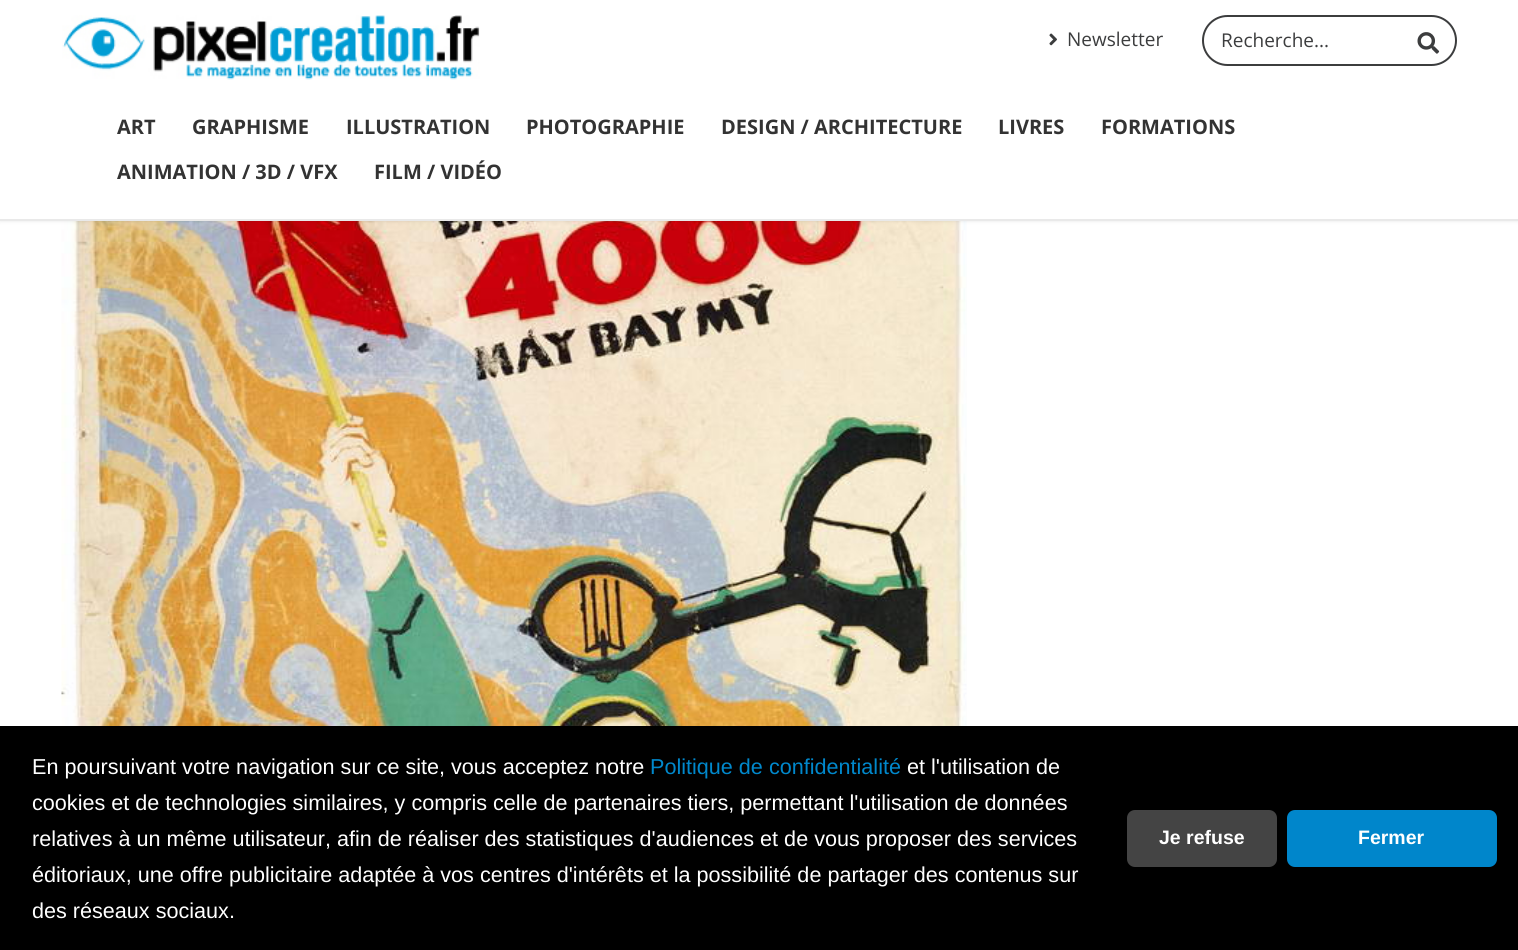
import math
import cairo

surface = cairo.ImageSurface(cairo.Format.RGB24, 1518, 950)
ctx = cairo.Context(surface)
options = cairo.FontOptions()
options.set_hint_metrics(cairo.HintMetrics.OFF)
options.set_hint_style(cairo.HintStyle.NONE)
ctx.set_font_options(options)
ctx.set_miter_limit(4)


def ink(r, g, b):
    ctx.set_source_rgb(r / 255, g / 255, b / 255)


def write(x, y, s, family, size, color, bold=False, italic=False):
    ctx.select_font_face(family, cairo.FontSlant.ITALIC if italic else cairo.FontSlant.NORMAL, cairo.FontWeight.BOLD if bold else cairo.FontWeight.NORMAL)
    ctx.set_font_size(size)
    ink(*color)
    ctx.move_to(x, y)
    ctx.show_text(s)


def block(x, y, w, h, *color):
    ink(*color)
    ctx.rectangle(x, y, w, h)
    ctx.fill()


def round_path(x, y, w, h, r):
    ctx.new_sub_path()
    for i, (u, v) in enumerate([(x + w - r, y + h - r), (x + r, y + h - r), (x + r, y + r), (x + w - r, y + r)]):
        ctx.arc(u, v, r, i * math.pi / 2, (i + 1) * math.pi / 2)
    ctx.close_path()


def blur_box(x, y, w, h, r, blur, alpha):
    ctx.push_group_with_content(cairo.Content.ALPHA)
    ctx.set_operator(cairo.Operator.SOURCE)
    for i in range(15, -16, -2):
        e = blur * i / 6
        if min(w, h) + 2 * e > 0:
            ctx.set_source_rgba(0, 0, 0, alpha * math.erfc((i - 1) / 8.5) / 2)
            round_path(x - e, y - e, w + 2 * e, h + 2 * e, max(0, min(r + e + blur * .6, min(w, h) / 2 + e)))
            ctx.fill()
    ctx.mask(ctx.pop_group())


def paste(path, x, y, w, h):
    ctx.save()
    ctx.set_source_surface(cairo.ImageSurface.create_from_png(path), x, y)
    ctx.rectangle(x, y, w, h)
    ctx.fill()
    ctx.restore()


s1 = dict(family="Open Sans", size=19, color=(60, 61, 62))
s2 = dict(family="Open Sans", size=20, color=(51, 51, 51), bold=True)
s3 = dict(family="Liberation Sans", size=21.6, color=(255, 255, 255))
s4 = dict(family="Liberation Sans", size=21.6, color=(0, 136, 204))
s5 = dict(family="Liberation Sans", size=19.5, color=(255, 255, 255), bold=True)

ink(255, 255, 255)
ctx.paint()
paste("pic4.png", 61, 221, 906, 505)
ink(0, 0, 0)
blur_box(0, -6, 1518, 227, 0, 2, 0.1)
block(0, 0, 1518, 219, 255, 255, 255)
block(0, 219, 1518, 2, 233, 233, 233)
paste("pic1.png", 62, 15, 418, 65)
paste("pic2.png", 1049, 33, 8, 13)
write(1067, 46, "Newsletter", **s1)
round_path(1203, 16, 253, 49, 24.5)
ctx.stroke()
write(1221, 47, "Recherche...", **s1)
paste("pic3.png", 1417, 32, 23, 22)
write(117, 134, "ART", **s2)
write(192, 134, "GRAPHISME", **s2)
write(346, 134, "ILLUSTRATION", **s2)
write(526, 134, "PHOTOGRAPHIE", **s2)
write(721, 134, "DESIGN / ARCHITECTURE", **s2)
write(998, 134, "LIVRES", **s2)
write(1101, 134, "FORMATIONS", **s2)
write(117, 179, "ANIMATION / 3D / VFX", **s2)
write(374, 179, "FILM / VIDÉO", **s2)
block(0, 726, 1518, 224, 0, 0, 0)
write(32, 774, "En poursuivant votre navigation sur ce site, vous acceptez notre", **s3)
write(650, 774, "Politique de confidentialité", **s4)
write(907, 774, "et l'utilisation de", **s3)
write(32, 810, "cookies et de technologies similaires, y compris celle de partenaires tiers, permettant l'utilisation de données", **s3)
write(32, 846, "relatives à un même utilisateur, afin de réaliser des statistiques d'audiences et de vous proposer des services", **s3)
write(32, 882, "éditoriaux, une offre publicitaire adaptée à vos centres d'intérêts et la possibilité de partager des contenus sur", **s3)
write(32, 918, "des réseaux sociaux.", **s3)
ink(68, 68, 68)
round_path(1127, 810, 150, 57, 8)
ctx.fill()
write(1159, 844, "Je refuse", **s5)
ink(0, 134, 203)
round_path(1287, 810, 210, 57, 8)
ctx.fill()
write(1358, 844, "Fermer", **s5)
surface.write_to_png("screenshot.png")
